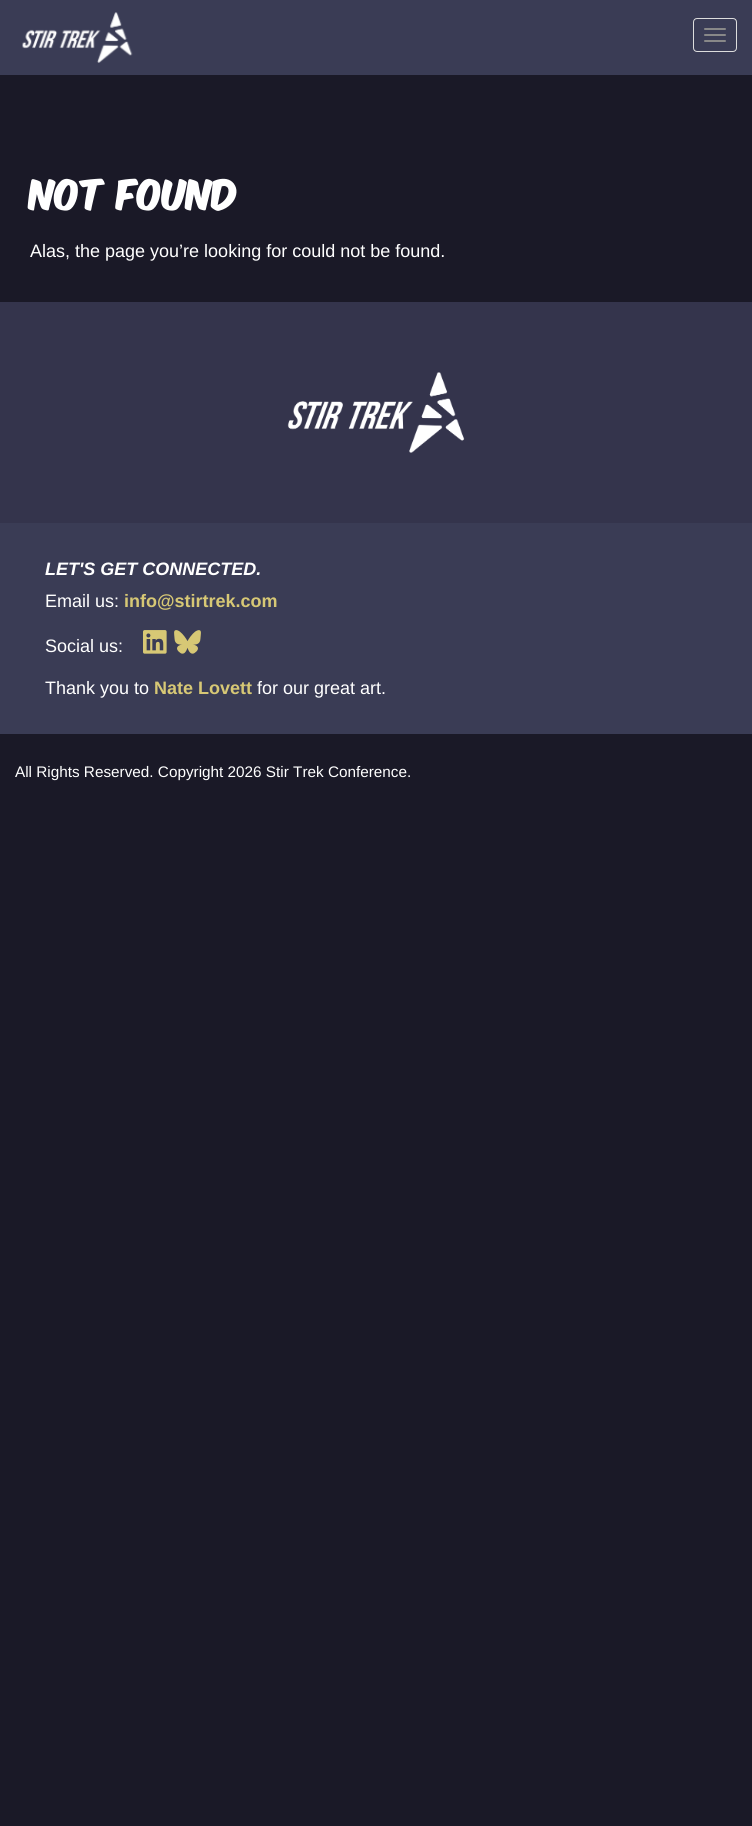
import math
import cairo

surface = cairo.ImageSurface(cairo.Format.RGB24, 752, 1826)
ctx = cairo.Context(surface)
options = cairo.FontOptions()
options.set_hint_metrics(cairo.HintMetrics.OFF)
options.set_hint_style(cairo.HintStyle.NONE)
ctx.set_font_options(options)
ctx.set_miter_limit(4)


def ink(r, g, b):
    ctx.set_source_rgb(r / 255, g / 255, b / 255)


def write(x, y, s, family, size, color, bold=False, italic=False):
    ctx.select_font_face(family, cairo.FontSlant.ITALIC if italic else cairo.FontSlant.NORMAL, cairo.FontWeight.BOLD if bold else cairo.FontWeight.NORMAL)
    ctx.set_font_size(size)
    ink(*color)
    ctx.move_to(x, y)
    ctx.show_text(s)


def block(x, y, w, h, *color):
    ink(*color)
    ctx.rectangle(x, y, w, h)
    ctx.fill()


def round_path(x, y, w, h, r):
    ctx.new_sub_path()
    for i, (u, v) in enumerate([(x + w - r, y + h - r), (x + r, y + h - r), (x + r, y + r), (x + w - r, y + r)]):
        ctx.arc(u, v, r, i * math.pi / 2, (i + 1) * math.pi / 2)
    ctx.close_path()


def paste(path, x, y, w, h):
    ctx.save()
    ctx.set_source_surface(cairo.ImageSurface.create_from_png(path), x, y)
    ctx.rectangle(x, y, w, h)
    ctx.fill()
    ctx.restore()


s1 = dict(family="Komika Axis", size=36, color=(255, 255, 255))
s2 = dict(family="Liberation Sans", size=18, color=(255, 255, 255))
s3 = dict(family="Liberation Sans", size=18, color=(255, 255, 255), bold=True, italic=True)
s4 = dict(family="Liberation Sans", size=18, color=(215, 200, 117), bold=True)
s5 = dict(family="Liberation Sans", size=15.3, color=(255, 255, 255))

ink(26, 25, 39)
ctx.paint()
block(0, 0, 752, 75, 58, 60, 85)
paste("pic1.png", 22, 12, 111, 51)
round_path(693.5, 18.5, 43, 33, 3.5)
ink(221, 221, 221)
ctx.set_line_width(1)
ctx.stroke()
ink(136, 136, 136)
round_path(704, 28, 22, 2, 1)
ctx.fill()
round_path(704, 34, 22, 2, 1)
ctx.fill()
round_path(704, 40, 22, 2, 1)
ctx.fill()
write(30, 210, "NOT FOUND", **s1)
write(30, 257, "Alas, the page you’re looking for could not be found.", **s2)
block(0, 523, 752, 211, 58, 60, 85)
block(0, 302, 752, 221, 52, 52, 76)
paste("pic2.png", 287, 372, 178, 81)
write(45, 575, "LET'S GET CONNECTED.", **s3)
write(45, 607, "Email us:", **s2)
write(124, 607, "info@stirtrek.com", **s4)
write(45, 652, "Social us:", **s2)
paste("pic3.png", 143, 630, 24, 24)
paste("pic4.png", 174, 630, 27, 24)
write(45, 694, "Thank you to", **s2)
write(154, 694, "Nate Lovett", **s4)
write(257, 694, "for our great art.", **s2)
write(15, 777, "All Rights Reserved. Copyright 2026 Stir Trek Conference.", **s5)
surface.write_to_png("screenshot.png")
